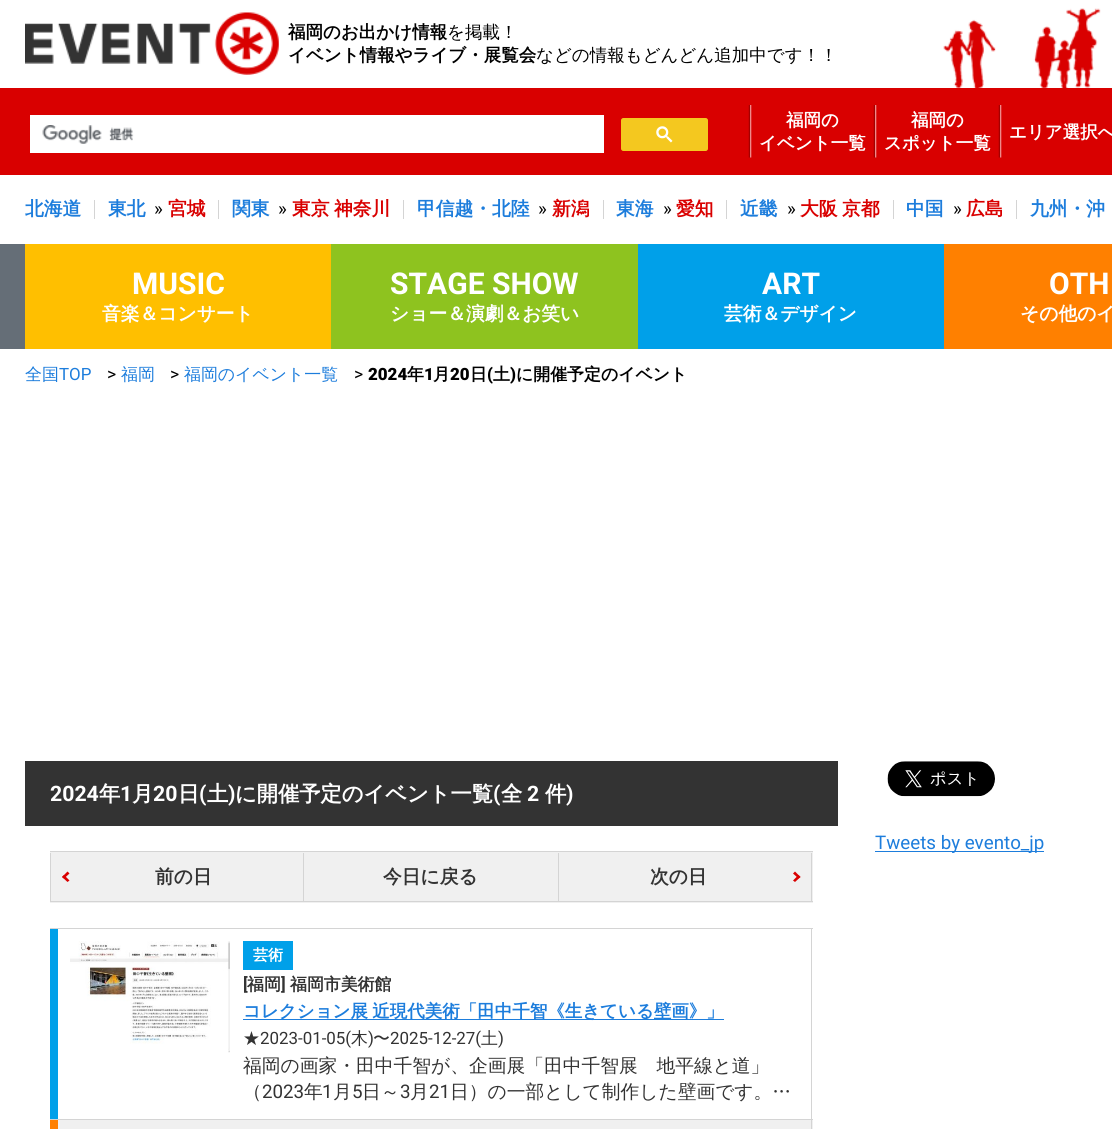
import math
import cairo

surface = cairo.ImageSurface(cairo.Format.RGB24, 1112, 1129)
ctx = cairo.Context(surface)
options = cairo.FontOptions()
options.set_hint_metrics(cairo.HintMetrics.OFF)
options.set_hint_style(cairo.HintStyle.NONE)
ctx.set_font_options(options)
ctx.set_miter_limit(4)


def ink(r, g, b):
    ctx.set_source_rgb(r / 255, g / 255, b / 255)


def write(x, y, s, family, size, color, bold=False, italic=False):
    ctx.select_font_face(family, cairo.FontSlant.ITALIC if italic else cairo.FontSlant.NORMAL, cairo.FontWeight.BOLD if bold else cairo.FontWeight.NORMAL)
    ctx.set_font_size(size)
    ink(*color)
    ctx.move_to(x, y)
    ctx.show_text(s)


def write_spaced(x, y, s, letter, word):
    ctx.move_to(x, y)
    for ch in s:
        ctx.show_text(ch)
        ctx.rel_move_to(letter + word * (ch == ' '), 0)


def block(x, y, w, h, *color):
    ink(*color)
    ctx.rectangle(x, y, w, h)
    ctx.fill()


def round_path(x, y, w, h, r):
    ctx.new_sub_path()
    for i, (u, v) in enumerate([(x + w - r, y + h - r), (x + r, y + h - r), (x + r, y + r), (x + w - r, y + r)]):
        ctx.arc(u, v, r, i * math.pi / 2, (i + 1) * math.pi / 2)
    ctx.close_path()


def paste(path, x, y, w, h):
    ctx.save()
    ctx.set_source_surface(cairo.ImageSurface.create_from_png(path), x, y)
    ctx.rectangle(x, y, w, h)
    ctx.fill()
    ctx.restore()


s1 = dict(family="WenQuanYi Zen Hei", size=17.5, color=(0, 0, 0), bold=True)
s2 = dict(family="WenQuanYi Zen Hei Medium", size=17.5, color=(0, 0, 0))
s3 = dict(family="WenQuanYi Zen Hei", size=17.5, color=(255, 255, 255), bold=True)
s4 = dict(family="WenQuanYi Zen Hei", size=18.75, color=(29, 125, 220), bold=True)
s5 = dict(family="Roboto", size=18.75, color=(0, 0, 0))
s6 = dict(family="WenQuanYi Zen Hei", size=18.75, color=(217, 0, 0), bold=True)
s7 = dict(family="Roboto", size=30, color=(255, 255, 255), bold=True)
s8 = dict(family="WenQuanYi Zen Hei", size=18.75, color=(255, 255, 255), bold=True)
s9 = dict(family="WenQuanYi Zen Hei Medium", size=16.9, color=(29, 125, 220))
s10 = dict(family="Roboto", size=16.9, color=(29, 125, 220))
s11 = dict(family="Roboto", size=17.5, color=(0, 0, 0))
s12 = dict(family="Roboto Black", size=16.9, color=(0, 0, 0))
s13 = dict(family="WenQuanYi Zen Hei", size=16.9, color=(0, 0, 0), bold=True)
s14 = dict(family="Roboto", size=21.25, color=(255, 255, 255), bold=True)
s15 = dict(family="WenQuanYi Zen Hei", size=21.25, color=(255, 255, 255), bold=True)
s16 = dict(family="WenQuanYi Zen Hei", size=18.75, color=(51, 51, 51), bold=True)
s17 = dict(family="WenQuanYi Zen Hei", size=15, color=(255, 255, 255), bold=True)
s18 = dict(family="Roboto", size=16.9, color=(51, 51, 51), bold=True)
s19 = dict(family="WenQuanYi Zen Hei", size=16.9, color=(51, 51, 51), bold=True)
s20 = dict(family="WenQuanYi Zen Hei Medium", size=16.9, color=(51, 51, 51))
s21 = dict(family="Roboto", size=16.9, color=(51, 51, 51))
s22 = dict(family="WenQuanYi Zen Hei Medium", size=18.75, color=(51, 51, 51))
s23 = dict(family="Roboto", size=18.75, color=(51, 51, 51))
s24 = dict(family="Roboto", size=18.75, color=(29, 125, 220))

ink(255, 255, 255)
ctx.paint()
paste("pic1.png", 943, 8, 158, 80)
paste("pic2.png", 25, 12, 254, 63)
write(288, 38, "福岡のお出かけ情報", **s1)
write(447, 38, "を掲載！", **s2)
write(288, 61, "イベント情報やライブ・展覧会", **s1)
write(536, 61, "などの情報もどんどん追加中です！！", **s2)
block(0, 88, 1112, 87, 217, 0, 0)
block(30, 115, 574, 38, 255, 255, 255)
paste("pic3.png", 42, 125, 92, 19)
ink(244, 200, 31)
round_path(621.5, 118.5, 86, 32, 2)
ctx.fill_preserve()
ctx.set_line_width(1)
ctx.stroke()
paste("pic4.png", 656, 126, 17, 17)
paste("pic5.png", 750, 105, 125, 53)
paste("pic6.png", 748, 105, 2, 53)
write(786, 126, "福岡の", **s3)
write(759, 149, "イベント一覧", **s3)
paste("pic5.png", 875, 105, 125, 53)
write(911, 126, "福岡の", **s3)
write(884, 149, "スポット一覧", **s3)
paste("pic7.png", 1000, 105, 2, 53)
write(1009, 138, "エリア選択へ", **s3)
block(94, 200, 1, 19, 212, 212, 212)
write(25, 215, "北海道", **s4)
block(218, 200, 1, 19, 212, 212, 212)
write(108, 215, "東北", **s4)
write(154, 215, "»", **s5)
write(168, 215, "宮城", **s6)
block(403, 200, 1, 19, 212, 212, 212)
write(232, 215, "関東", **s4)
write(278, 215, "»", **s5)
write(292, 215, "東京", **s6)
write(334, 215, "神奈川", **s6)
block(603, 200, 1, 19, 212, 212, 212)
write(417, 215, "甲信越・北陸", **s4)
write(538, 215, "»", **s5)
write(552, 215, "新潟", **s6)
block(726, 200, 1, 19, 212, 212, 212)
write(616, 215, "東海", **s4)
write(663, 215, "»", **s5)
write(676, 215, "愛知", **s6)
block(893, 200, 1, 19, 212, 212, 212)
write(740, 215, "近畿", **s4)
write(787, 215, "»", **s5)
write(800, 215, "大阪", **s6)
write(842, 215, "京都", **s6)
block(1016, 200, 1, 19, 212, 212, 212)
write(906, 215, "中国", **s4)
write(953, 215, "»", **s5)
write(966, 215, "広島", **s6)
write(1030, 215, "九州・沖", **s4)
block(0, 244, 25, 105, 101, 110, 119)
block(25, 244, 306, 105, 255, 191, 0)
write(132, 294, "MUSIC", **s7)
write(102, 320, "音楽＆コンサート", **s8)
block(331, 244, 307, 105, 142, 195, 31)
write(390, 294, "STAGE SHOW", **s7)
write(390, 320, "ショー＆演劇＆お笑い", **s8)
block(638, 244, 306, 105, 0, 160, 233)
write(762, 294, "ART", **s7)
write(724, 320, "芸術＆デザイン", **s8)
block(944, 244, 168, 105, 255, 128, 0)
write(1049, 294, "OTH", **s7)
write(1020, 320, "その他のイ", **s8)
write(25, 380, "全国", **s9)
write(59, 380, "TOP", **s10)
write(107, 380, ">", **s11)
write(121, 380, "福岡", **s9)
write(170, 380, ">", **s11)
write(184, 380, "福岡のイベント一覧", **s9)
write(354, 380, ">", **s11)
write(368, 380, "2024", **s12)
write(407, 380, "年", **s13)
write(424, 380, "1", **s12)
write(433, 380, "月", **s13)
write(450, 380, "20", **s12)
write(470, 380, "日", **s13)
write(487, 380, "(", **s12)
write(493, 380, "土", **s13)
write(510, 380, ")", **s12)
write(516, 380, "に開催予定のイベント", **s13)
block(25, 761, 813, 65, 51, 51, 51)
write(50, 801, "2024", **s14)
write(99, 801, "年", **s15)
write(120, 801, "1", **s14)
write(132, 801, "月", **s15)
write(153, 801, "20", **s14)
write(178, 801, "日", **s15)
write(199, 801, "(", **s14)
write(207, 801, "土", **s15)
write(228, 801, ")", **s14)
write(235, 801, "に開催予定のイベント一覧", **s15)
write(493, 801, "(", **s14)
write(501, 801, "全", **s15)
write(527, 801, "2", **s14)
write(545, 801, "件", **s15)
write(566, 801, ")", **s14)
block(50, 852, 763, 51, 240, 240, 240)
block(50, 851, 763, 1, 212, 212, 212)
block(50, 901, 763, 1, 212, 212, 212)
block(303, 853, 1, 48, 212, 212, 212)
block(50, 853, 1, 48, 212, 212, 212)
ink(217, 0, 0)
ctx.new_path()
ctx.move_to(64, 875)
ctx.line_to(69.5, 880.5)
ctx.line_to(67.5, 882)
ctx.line_to(62, 877)
ctx.close_path()
ctx.fill()
ctx.new_path()
ctx.move_to(67.5, 871.5)
ctx.line_to(69.5, 873.5)
ctx.line_to(64, 878.5)
ctx.line_to(62, 877)
ctx.close_path()
ctx.fill()
write(155, 883, "前の日", **s16)
block(558, 853, 1, 48, 212, 212, 212)
write(383, 883, "今日に戻る", **s16)
block(811, 853, 1, 48, 212, 212, 212)
write(650, 883, "次の日", **s16)
ink(217, 0, 0)
ctx.new_path()
ctx.move_to(795, 871.5)
ctx.line_to(800.5, 877)
ctx.line_to(798.5, 878.5)
ctx.line_to(793, 873.5)
ctx.close_path()
ctx.fill()
ctx.new_path()
ctx.move_to(798.5, 875)
ctx.line_to(800.5, 877)
ctx.line_to(795, 882)
ctx.line_to(793, 880.5)
ctx.close_path()
ctx.fill()
block(50, 928, 763, 1, 212, 212, 212)
block(811, 929, 1, 191, 212, 212, 212)
block(50, 1119, 763, 1, 212, 212, 212)
block(50, 929, 8, 190, 0, 160, 233)
paste("pic8.png", 70, 941, 160, 112)
block(243, 941, 50, 29, 0, 160, 233)
write(253, 960, "芸術", **s17)
write(243, 990, "[", **s18)
write(247, 990, "福岡", **s19)
write(281, 990, "]", **s18)
write(290, 990, "福岡市美術館", **s19)
block(243, 1019, 481, 1, 29, 125, 220)
ctx.set_font_size(17.5)
write_spaced(243, 1017, "コレクション展 近現代美術「田中千智《生きている壁画》」", 0, -1)
write(243, 1044, "★", **s20)
write(260, 1044, "2023-01-05(", **s21)
write(351, 1044, "木", **s20)
write(368, 1044, ")", **s21)
write(373, 1044, "〜", **s20)
write(390, 1044, "2025-12-27(", **s21)
write(481, 1044, "土", **s20)
write(498, 1044, ")", **s21)
write(243, 1072, "福岡の画家・田中千智が、企画展「田中千智展　地平線と道」", **s22)
write(243, 1098, "（", **s22)
write(262, 1098, "2023", **s23)
write(304, 1098, "年", **s22)
write(322, 1098, "1", **s23)
write(333, 1098, "月", **s22)
write(352, 1098, "5", **s23)
write(362, 1098, "日～", **s22)
write(400, 1098, "3", **s23)
write(410, 1098, "月", **s22)
write(429, 1098, "21", **s23)
write(450, 1098, "日）の一部として制作した壁画です。…", **s22)
block(58, 1120, 755, 9, 240, 240, 240)
block(811, 1120, 1, 9, 212, 212, 212)
block(50, 1120, 8, 9, 255, 128, 0)
paste("pic9.png", 887, 761, 108, 36)
block(875, 851, 169, 1, 29, 125, 220)
write(875, 849, "Tweets by evento_jp", **s24)
surface.write_to_png("screenshot.png")
